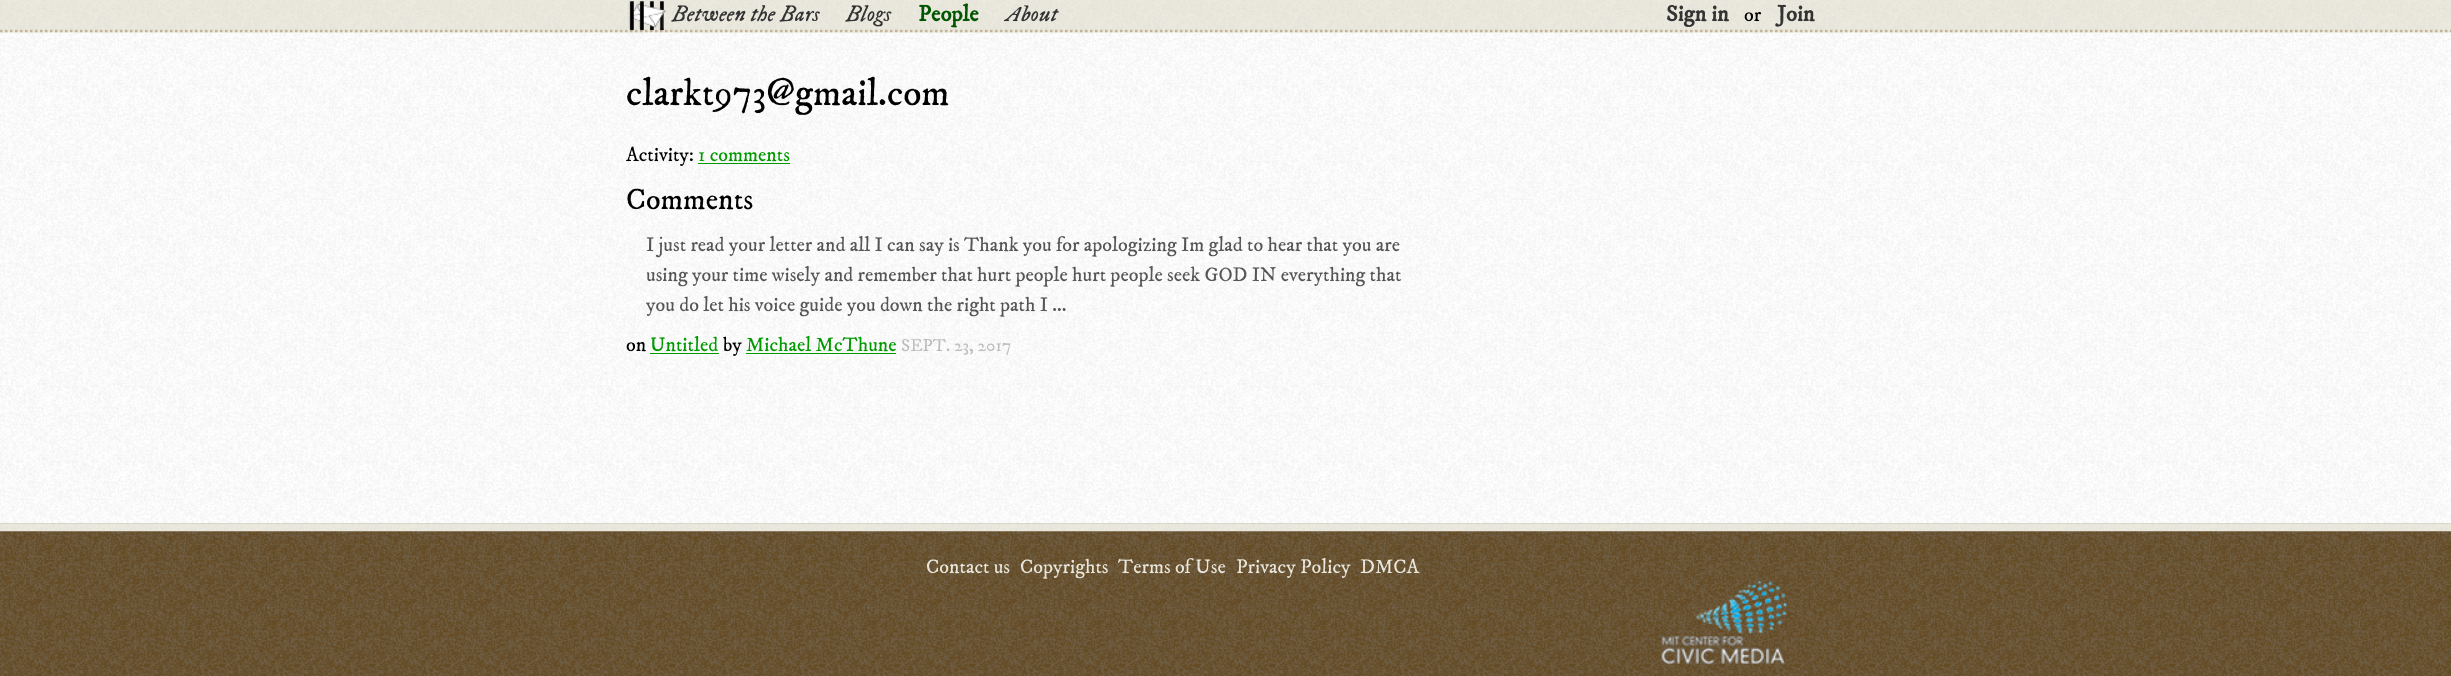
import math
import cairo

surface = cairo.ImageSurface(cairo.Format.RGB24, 2451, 676)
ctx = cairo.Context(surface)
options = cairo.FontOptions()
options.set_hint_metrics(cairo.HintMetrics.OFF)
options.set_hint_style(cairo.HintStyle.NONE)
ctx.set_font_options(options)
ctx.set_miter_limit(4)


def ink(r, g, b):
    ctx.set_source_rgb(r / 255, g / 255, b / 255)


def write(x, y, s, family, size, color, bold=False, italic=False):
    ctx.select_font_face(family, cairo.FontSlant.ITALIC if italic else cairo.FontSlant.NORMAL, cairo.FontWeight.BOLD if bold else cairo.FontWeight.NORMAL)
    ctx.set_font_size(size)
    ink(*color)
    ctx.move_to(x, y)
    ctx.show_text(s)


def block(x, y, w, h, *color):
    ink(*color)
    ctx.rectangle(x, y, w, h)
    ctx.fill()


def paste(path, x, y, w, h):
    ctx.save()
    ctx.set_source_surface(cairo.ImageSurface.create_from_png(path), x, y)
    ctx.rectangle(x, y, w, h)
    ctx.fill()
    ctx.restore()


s1 = dict(family="IM FELL DW Pica", size=22.5, color=(51, 51, 51), italic=True)
s2 = dict(family="IM FELL DW Pica", size=22.5, color=(0, 85, 0), bold=True)
s3 = dict(family="IM FELL DW Pica", size=22.5, color=(51, 51, 51), bold=True)
s4 = dict(family="IM FELL DW Pica", size=20, color=(0, 0, 0))
s5 = dict(family="IM FELL DW Pica", size=37.5, color=(0, 0, 0))
s6 = dict(family="IM FELL DW Pica", size=20, color=(0, 153, 0))
s7 = dict(family="IM FELL DW Pica", size=30, color=(0, 0, 0))
s8 = dict(family="IM FELL DW Pica", size=20, color=(85, 85, 85))
s9 = dict(family="IM FELL DW Pica", size=17.5, color=(187, 187, 187))
s10 = dict(family="IM FELL DW Pica", size=20, color=(233, 231, 221))

ink(255, 255, 255)
ctx.paint()
paste("pic1.png", 0, 32, 2451, 492)
paste("pic2.png", 0, 0, 2451, 33)
ctx.new_path()
ctx.move_to(0, 31)
ctx.line_to(2451, 31)
ink(195, 179, 153)
ctx.set_line_width(2.5)
ctx.set_dash([2.5, 2.5])
ctx.stroke()
paste("pic3.png", 628, 1, 38, 30)
write(672, 21, "Between the Bars", **s1)
write(846, 21, "Blogs", **s1)
write(918, 21, "People", **s2)
write(1006, 21, "About", **s1)
write(1666, 21, "Sign in", **s3)
write(1744, 21, "or", **s4)
write(1777, 21, "Join", **s3)
write(626, 105, "clarkt973@gmail.com", **s5)
write(626, 161, "Activity:", **s4)
write(698, 161, "1 comments", **s6)
block(698, 163, 92, 1, 0, 153, 0)
write(626, 209, "Comments", **s7)
write(646, 251, "I just read your letter and all I can say is Thank you for apologizing Im glad to hear that you are", **s8)
write(646, 281, "using your time wisely and remember that hurt people hurt people seek GOD IN everything that", **s8)
write(646, 311, "you do let his voice guide you down the right path I ...", **s8)
write(626, 351, "on", **s4)
write(650, 351, "Untitled", **s6)
block(650, 353, 69, 1, 0, 153, 0)
write(723, 351, "by", **s4)
write(746, 351, "Michael McThune", **s6)
block(746, 353, 150, 1, 0, 153, 0)
write(901, 351, "SEPT. 23, 2017", **s9)
paste("pic4.png", 0, 523, 2451, 153)
paste("pic5.png", 0, 523, 2451, 9)
write(926, 573, "Contact us", **s10)
write(1020, 573, "Copyrights", **s10)
write(1118, 573, "Terms of Use", **s10)
write(1236, 573, "Privacy Policy", **s10)
write(1360, 573, "DMCA", **s10)
paste("pic6.png", 1661, 581, 126, 84)
surface.write_to_png("screenshot.png")
